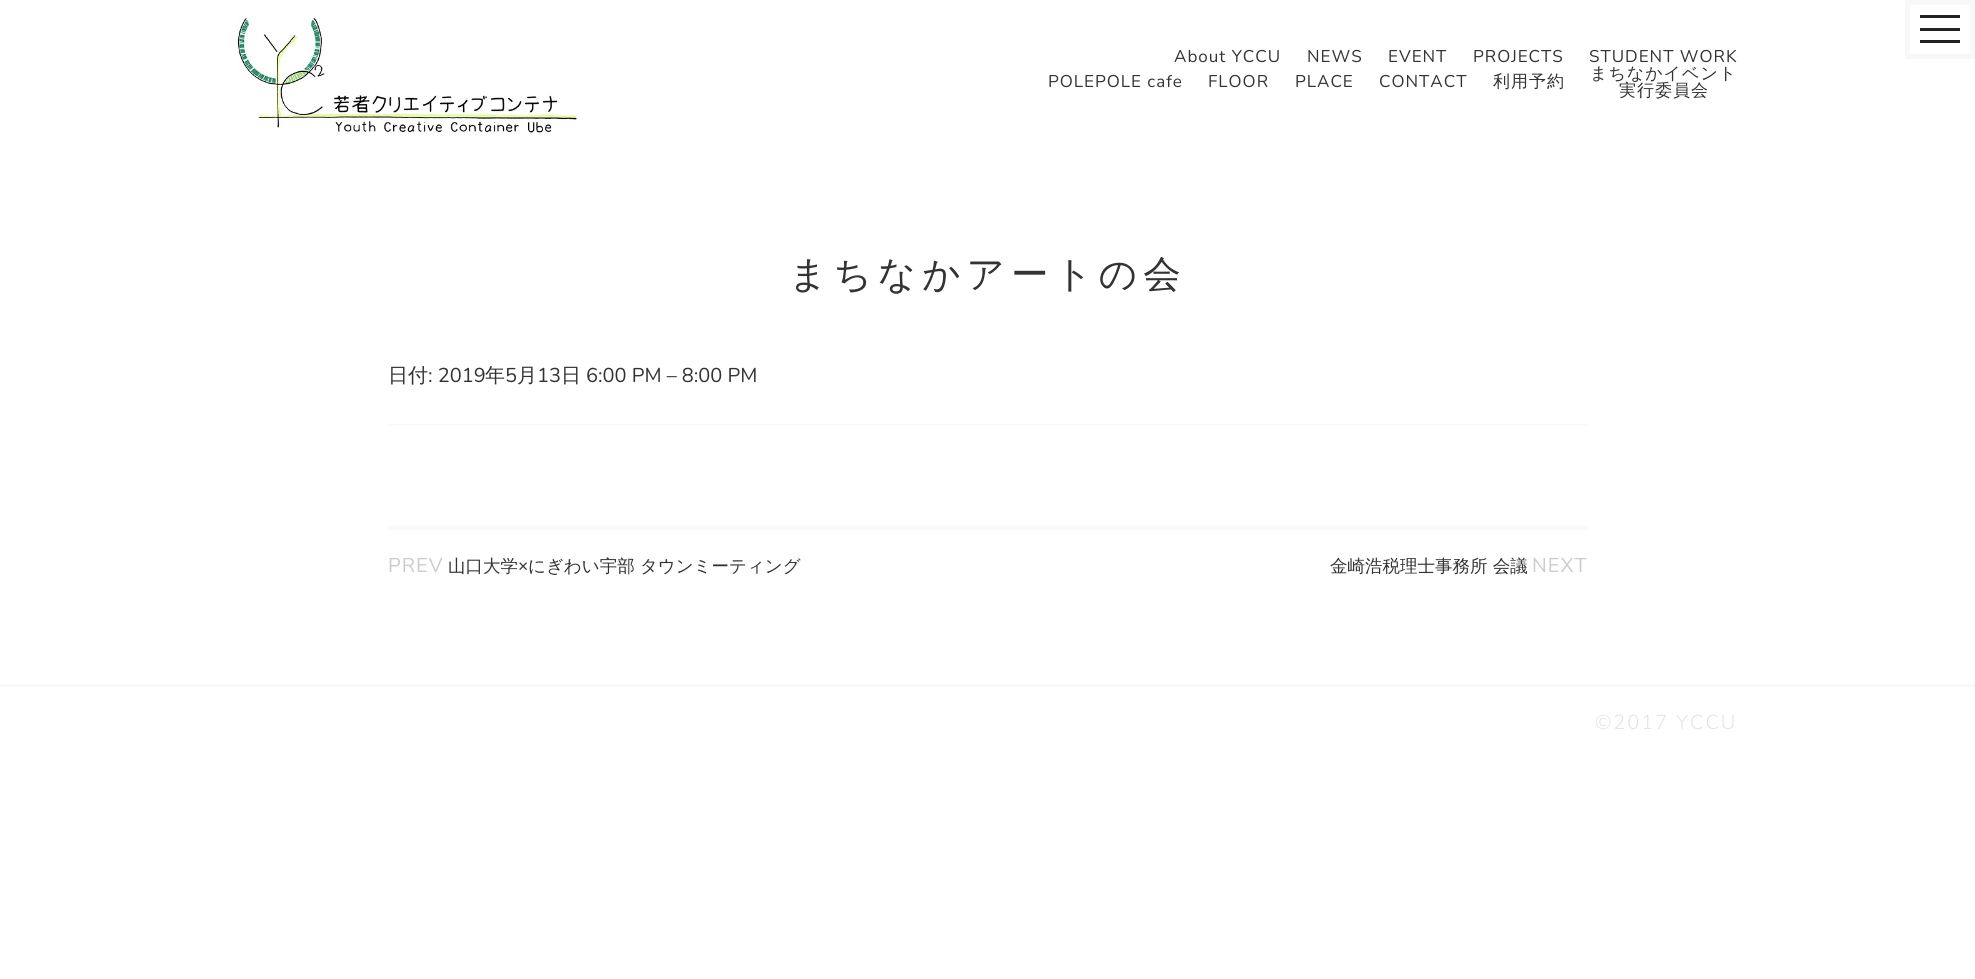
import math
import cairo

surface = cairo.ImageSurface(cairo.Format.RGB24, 1975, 979)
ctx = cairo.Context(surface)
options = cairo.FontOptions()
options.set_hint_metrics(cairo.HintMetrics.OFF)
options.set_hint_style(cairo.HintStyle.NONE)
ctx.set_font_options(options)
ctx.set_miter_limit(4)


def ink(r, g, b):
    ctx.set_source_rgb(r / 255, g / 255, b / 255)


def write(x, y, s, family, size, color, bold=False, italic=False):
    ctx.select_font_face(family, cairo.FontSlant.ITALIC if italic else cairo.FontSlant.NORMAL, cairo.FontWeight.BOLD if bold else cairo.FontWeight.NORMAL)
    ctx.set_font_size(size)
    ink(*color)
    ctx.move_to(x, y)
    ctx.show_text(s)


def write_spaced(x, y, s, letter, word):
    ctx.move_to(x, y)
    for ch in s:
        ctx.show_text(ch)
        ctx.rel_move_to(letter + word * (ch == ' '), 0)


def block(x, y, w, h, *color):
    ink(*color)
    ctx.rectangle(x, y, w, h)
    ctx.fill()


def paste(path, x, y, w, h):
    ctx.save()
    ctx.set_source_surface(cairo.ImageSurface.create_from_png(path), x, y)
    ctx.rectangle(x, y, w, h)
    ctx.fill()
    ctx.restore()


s1 = dict(family="WenQuanYi Zen Hei Medium", size=20, color=(51, 51, 51))
s2 = dict(family="Nunito", size=20, color=(51, 51, 51))
s3 = dict(family="WenQuanYi Zen Hei Medium", size=17.5, color=(51, 51, 51))
s4 = dict(family="Liberation Sans", size=17.5, color=(51, 51, 51))

ink(255, 255, 255)
ctx.paint()
paste("pic1.png", 237, 16, 341, 118)
ctx.select_font_face("Nunito")
ctx.set_font_size(17)
ink(51, 51, 51)
write_spaced(1174, 62, "About YCCU", 1, 0)
write_spaced(1307, 62, "NEWS", 1, 0)
write_spaced(1388, 62, "EVENT", 1, 0)
write_spaced(1473, 62, "PROJECTS", 1, 0)
write_spaced(1589, 62, "STUDENT WORK", 1, 0)
write_spaced(1048, 87, "POLEPOLE cafe", 1, 0)
write_spaced(1208, 87, "FLOOR", 1, 0)
write_spaced(1295, 87, "PLACE", 1, 0)
write_spaced(1379, 87, "CONTACT", 1, 0)
ctx.select_font_face("WenQuanYi Zen Hei Medium")
write_spaced(1493, 87, "利用予約", 1, 0)
write_spaced(1590, 79, "まちなかイベント", 1, 0)
write_spaced(1619, 96, "実行委員会", 1, 0)
ctx.rectangle(1907.5, 2.5, 65, 54)
ink(248, 248, 248)
ctx.set_line_width(5)
ctx.stroke()
block(1920, 28, 40, 3, 34, 34, 34)
block(1920, 15, 40, 3, 34, 34, 34)
block(1920, 40, 40, 3, 34, 34, 34)
ctx.set_font_size(37.5)
ink(51, 51, 51)
write_spaced(789, 287, "まちなかアートの会", 6, 0)
write(388, 382, "日付", **s1)
write(428, 382, ": 2019", **s2)
write(485, 382, "年", **s1)
write(505, 382, "5", **s2)
write(517, 382, "月", **s1)
write(537, 382, "13", **s2)
write(561, 382, "日", **s1)
write(586, 382, "6:00 PM – 8:00 PM", **s2)
block(388, 424, 1200, 1, 249, 249, 249)
block(388, 525, 1200, 5, 249, 249, 249)
ink(204, 204, 204)
write_spaced(388, 572, "PREV", 1, 0)
write(448, 572, "山口大学", **s3)
write(518, 572, "×", **s4)
write(528, 572, "にぎわい宇部 タウンミーティング", **s3)
write(1330, 572, "金崎浩税理士事務所 会議", **s3)
ctx.select_font_face("Nunito")
ctx.set_font_size(20)
ink(204, 204, 204)
write_spaced(1532, 572, "NEXT", 1, 0)
block(0, 684, 1975, 3, 249, 249, 249)
ctx.select_font_face("Nunito Light")
ink(228, 228, 228)
write_spaced(1595, 729, "©2017 YCCU", 2, 0)
surface.write_to_png("screenshot.png")
